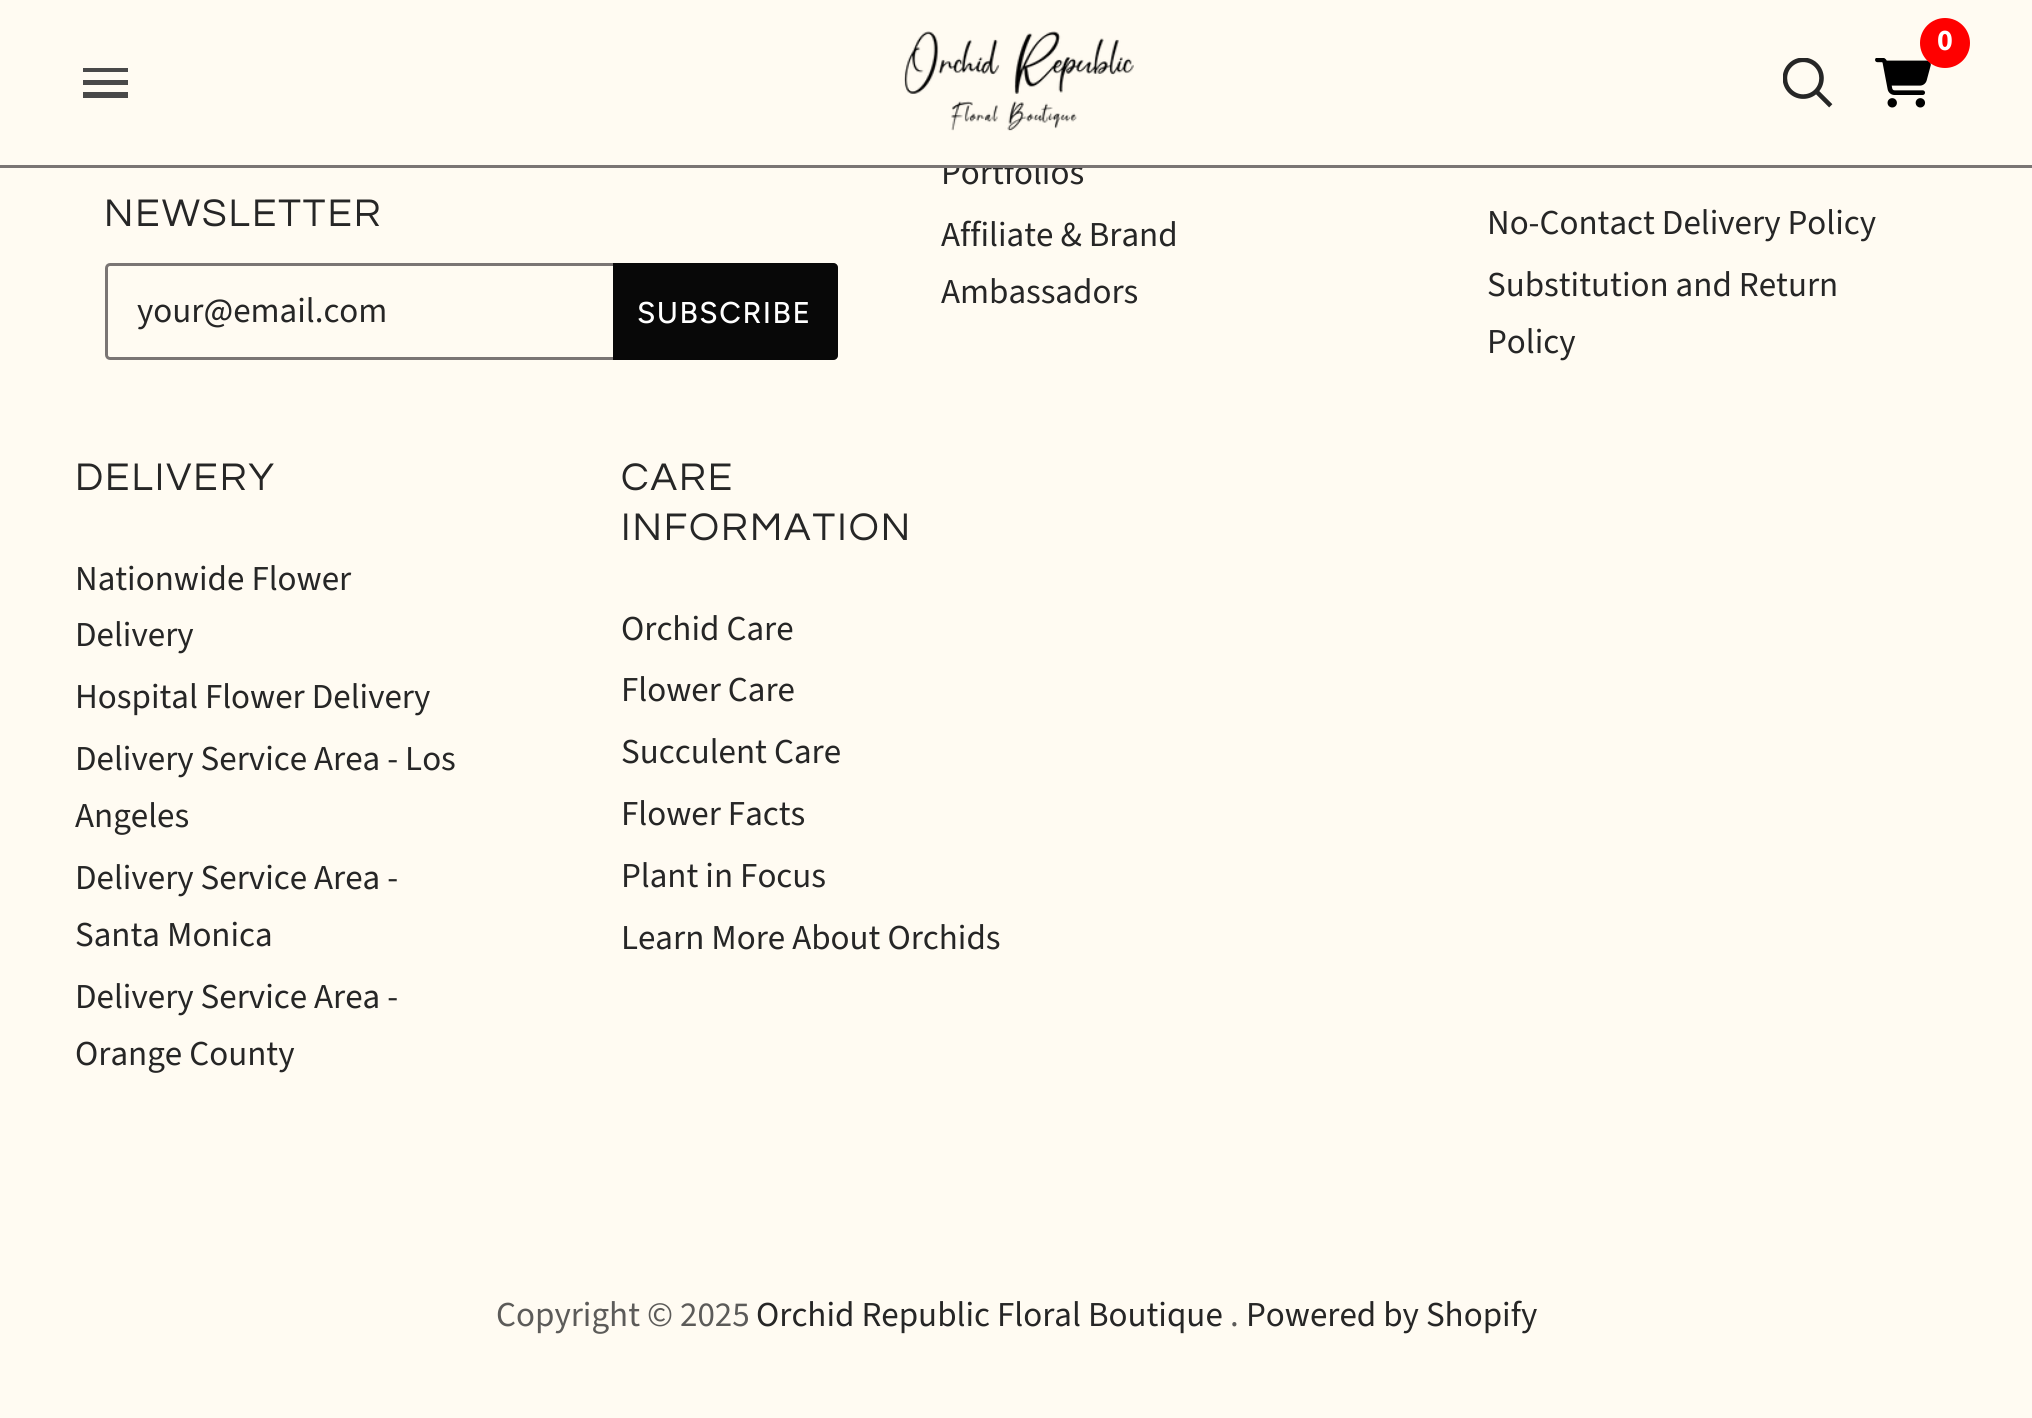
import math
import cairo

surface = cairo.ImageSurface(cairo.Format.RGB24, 2032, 1418)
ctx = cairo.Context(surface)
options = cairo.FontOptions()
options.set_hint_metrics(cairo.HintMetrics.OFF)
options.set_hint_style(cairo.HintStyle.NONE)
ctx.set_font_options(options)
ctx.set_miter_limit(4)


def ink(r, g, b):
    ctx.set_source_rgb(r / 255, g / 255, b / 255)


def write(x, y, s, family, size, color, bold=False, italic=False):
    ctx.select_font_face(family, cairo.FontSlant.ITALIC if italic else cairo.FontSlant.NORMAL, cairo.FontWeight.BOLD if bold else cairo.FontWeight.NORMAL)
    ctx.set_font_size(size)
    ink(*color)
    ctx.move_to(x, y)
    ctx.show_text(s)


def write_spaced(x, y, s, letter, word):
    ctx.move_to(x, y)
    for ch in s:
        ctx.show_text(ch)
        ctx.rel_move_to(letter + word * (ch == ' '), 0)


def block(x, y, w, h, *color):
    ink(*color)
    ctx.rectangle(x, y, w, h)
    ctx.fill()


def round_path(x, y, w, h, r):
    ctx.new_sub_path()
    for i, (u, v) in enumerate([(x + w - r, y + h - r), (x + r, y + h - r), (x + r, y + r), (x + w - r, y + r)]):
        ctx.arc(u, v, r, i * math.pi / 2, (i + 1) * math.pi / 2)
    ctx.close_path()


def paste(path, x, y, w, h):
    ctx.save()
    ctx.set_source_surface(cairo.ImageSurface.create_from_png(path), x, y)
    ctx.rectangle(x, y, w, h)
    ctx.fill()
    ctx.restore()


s1 = dict(family="Source Sans Pro", size=35, color=(38, 38, 38))
s2 = dict(family="Source Sans Pro", size=30, color=(255, 255, 255), bold=True)
s3 = dict(family="Source Sans Pro", size=35, color=(92, 91, 89))

ink(255, 251, 242)
ctx.paint()
write(941, 184, "Portfolios", **s1)
block(944, 158, 105, 7, 255, 251, 242)
block(0, 165, 2032, 3, 122, 117, 116)
ctx.save()
ctx.rectangle(83, 68, 45, 30)
ctx.clip()
ink(73, 73, 73)
ctx.set_fill_rule(cairo.FillRule.EVEN_ODD)
ctx.new_path()
ctx.move_to(82, 68)
ctx.line_to(128, 68)
ctx.line_to(128, 72)
ctx.line_to(82, 72)
ctx.close_path()
ctx.move_to(82, 80)
ctx.line_to(128, 80)
ctx.line_to(128, 85)
ctx.line_to(82, 85)
ctx.close_path()
ctx.move_to(82, 92)
ctx.line_to(128, 92)
ctx.line_to(128, 98)
ctx.line_to(82, 98)
ctx.close_path()
ctx.fill()
ctx.restore()
paste("pic1.png", 904, 31, 230, 100)
paste("pic2.png", 1875, 58, 56, 50)
ink(255, 0, 0)
ctx.arc(1945, 43, 25, 0, 2 * math.pi)
ctx.fill()
write(1937, 50, "0", **s2)
paste("pic3.png", 1783, 58, 50, 50)
ctx.select_font_face("Questrial")
ctx.set_font_size(40)
ink(38, 38, 38)
write_spaced(104, 226, "NEWSLETTER", 2, 0)
round_path(106.5, 264.5, 730, 94, 3.5)
ink(122, 117, 116)
ctx.set_line_width(3)
ctx.stroke()
write(137, 322, "your@email.com", **s1)
ink(8, 8, 8)
ctx.new_path()
ctx.move_to(613, 263)
ctx.line_to(833, 263)
ctx.curve_to(836, 263, 838, 265, 838, 268)
ctx.line_to(838, 355)
ctx.curve_to(838, 358, 836, 360, 833, 360)
ctx.line_to(613, 360)
ctx.close_path()
ctx.fill()
ctx.select_font_face("Figtree Medium")
ctx.set_font_size(30)
ink(255, 255, 255)
write_spaced(637, 323, "SUBSCRIBE", 1.5, 0)
write(941, 246, "Affiliate & Brand", **s1)
write(941, 303, "Ambassadors", **s1)
write(1487, 234, "No-Contact Delivery Policy", **s1)
write(1487, 296, "Substitution and Return", **s1)
write(1487, 353, "Policy", **s1)
ctx.select_font_face("Questrial")
ctx.set_font_size(40)
write_spaced(75, 490, "DELIVERY", 2, 0)
write(75, 590, "Nationwide Flower", **s1)
write(75, 646, "Delivery", **s1)
write(75, 708, "Hospital Flower Delivery", **s1)
write(75, 770, "Delivery Service Area - Los", **s1)
write(75, 827, "Angeles", **s1)
write(75, 889, "Delivery Service Area -", **s1)
write(75, 946, "Santa Monica", **s1)
write(75, 1008, "Delivery Service Area -", **s1)
write(75, 1065, "Orange County", **s1)
ctx.select_font_face("Questrial")
ctx.set_font_size(40)
write_spaced(621, 490, "CARE", 2, 0)
write_spaced(621, 540, "INFORMATION", 2, 0)
write(621, 640, "Orchid Care", **s1)
write(621, 701, "Flower Care", **s1)
write(621, 763, "Succulent Care", **s1)
write(621, 825, "Flower Facts", **s1)
write(621, 887, "Plant in Focus", **s1)
write(621, 949, "Learn More About Orchids", **s1)
write(496, 1326, "Copyright © 2025", **s3)
write(756, 1326, "Orchid Republic Floral Boutique", **s1)
write(1230, 1326, ".", **s3)
write(1246, 1326, "Powered by Shopify", **s1)
surface.write_to_png("screenshot.png")
